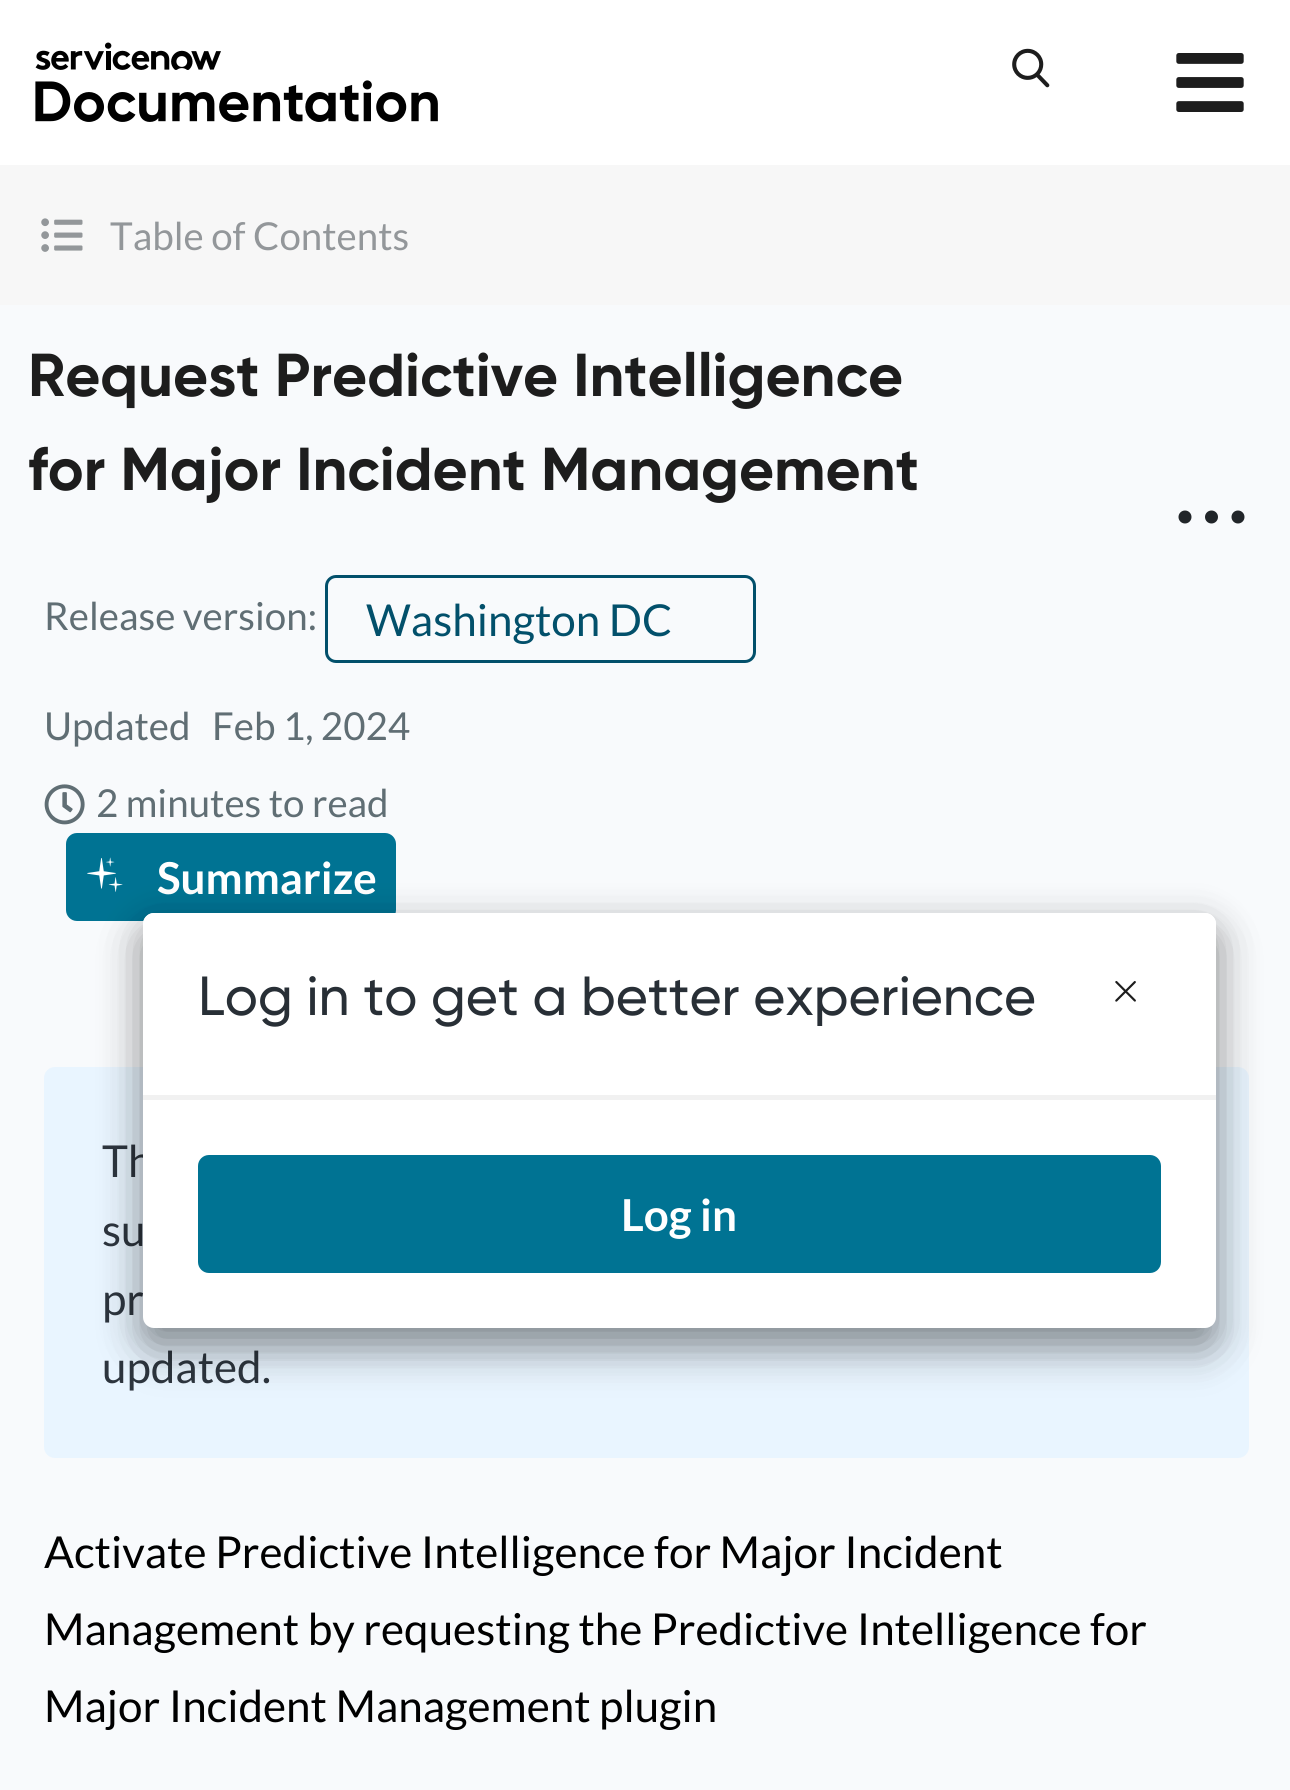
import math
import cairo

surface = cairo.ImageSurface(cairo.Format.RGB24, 1290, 1790)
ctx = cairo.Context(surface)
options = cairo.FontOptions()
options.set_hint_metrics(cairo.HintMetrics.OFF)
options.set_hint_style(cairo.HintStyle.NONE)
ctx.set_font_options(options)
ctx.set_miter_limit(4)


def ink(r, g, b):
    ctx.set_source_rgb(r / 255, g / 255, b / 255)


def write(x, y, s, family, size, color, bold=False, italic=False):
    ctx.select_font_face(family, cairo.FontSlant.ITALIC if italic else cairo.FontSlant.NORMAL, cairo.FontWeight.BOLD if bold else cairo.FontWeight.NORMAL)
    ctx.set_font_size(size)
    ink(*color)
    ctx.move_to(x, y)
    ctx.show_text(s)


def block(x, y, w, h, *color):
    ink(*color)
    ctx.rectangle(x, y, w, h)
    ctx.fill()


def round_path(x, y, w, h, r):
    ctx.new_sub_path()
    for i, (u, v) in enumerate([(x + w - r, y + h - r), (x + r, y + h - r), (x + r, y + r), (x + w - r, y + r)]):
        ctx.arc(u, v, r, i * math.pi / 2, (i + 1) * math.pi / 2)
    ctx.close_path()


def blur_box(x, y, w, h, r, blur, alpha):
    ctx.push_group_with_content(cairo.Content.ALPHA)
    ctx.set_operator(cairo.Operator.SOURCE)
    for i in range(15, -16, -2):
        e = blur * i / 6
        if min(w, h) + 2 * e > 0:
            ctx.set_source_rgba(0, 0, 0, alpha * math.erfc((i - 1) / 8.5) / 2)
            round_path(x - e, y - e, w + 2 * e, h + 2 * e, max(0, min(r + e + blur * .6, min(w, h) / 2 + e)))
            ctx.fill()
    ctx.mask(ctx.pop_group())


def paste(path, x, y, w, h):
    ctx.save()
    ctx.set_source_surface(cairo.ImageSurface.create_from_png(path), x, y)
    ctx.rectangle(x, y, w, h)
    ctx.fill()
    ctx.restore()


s1 = dict(family="Lato", size=38.5, color=(147, 151, 154))
s2 = dict(family="Gilroy", size=60.5, color=(29, 29, 29), bold=True)
s3 = dict(family="Lato", size=38.5, color=(96, 110, 116))
s4 = dict(family="Lato", size=44, color=(2, 80, 107))
s5 = dict(family="Lato", size=44, color=(255, 255, 255), bold=True)
s6 = dict(family="Lato", size=44, color=(45, 53, 62))
s7 = dict(family="Lato", size=44, color=(0, 0, 0))
s8 = dict(family="Gilroy Medium", size=55, color=(40, 47, 54))

ink(255, 255, 255)
ctx.paint()
paste("pic1.png", 35, 42, 403, 80)
paste("pic2.png", 1012, 48, 38, 40)
paste("pic3.png", 1176, 53, 68, 59)
block(0, 305, 1290, 1485, 248, 250, 252)
block(0, 165, 1290, 140, 247, 247, 247)
paste("pic4.png", 41, 218, 42, 34)
write(110, 250, "Table of Contents", **s1)
write(28, 396, "Request Predictive Intelligence", **s2)
write(28, 490, "for Major Incident Management", **s2)
ink(33, 37, 41)
ctx.new_path()
ctx.arc(1185, 517, 6.5, 0, 2 * math.pi)
ctx.fill()
ctx.arc(1211.5, 517, 6.5, 0, 2 * math.pi)
ctx.fill()
ctx.arc(1238, 517, 6.5, 0, 2 * math.pi)
ctx.fill()
write(44, 630, "Release version:", **s3)
round_path(326.5, 576.5, 428, 85, 9.5)
ink(2, 80, 107)
ctx.set_line_width(3)
ctx.stroke()
write(366, 636, "Washington DC", **s4)
write(44, 740, "Updated", **s3)
write(212, 740, "Feb 1, 2024", **s3)
paste("pic5.png", 44, 784, 41, 41)
write(96, 817, "2 minutes to read", **s3)
ink(0, 115, 147)
round_path(66, 833, 330, 88, 11)
ctx.fill()
paste("pic6.png", 87, 857, 36, 35)
write(157, 894, "Summarize", **s5)
ink(233, 245, 255)
round_path(45.5, 1068.5, 1202, 388, 9.5)
ctx.fill_preserve()
ctx.stroke()
write(102, 1177, "Th", **s6)
write(102, 1246, "su", **s6)
write(102, 1315, "pr", **s6)
write(102, 1383, "updated.", **s6)
write(44, 1568, "Activate Predictive Intelligence for Major Incident", **s7)
write(44, 1645, "Management by requesting the Predictive Intelligence for", **s7)
write(44, 1722, "Major Incident Management plugin", **s7)
ink(0, 0, 0)
blur_box(143, 927, 1073, 415, 11, 20.5, 0.25)
blur_box(143, 935, 1073, 415, 11, 22, 0.27)
ink(255, 255, 255)
round_path(143, 913, 1073, 415, 11)
ctx.fill()
ctx.new_path()
ctx.move_to(154, 913)
ctx.line_to(1205, 913)
ctx.curve_to(1211, 913, 1216, 918, 1216, 924)
ctx.line_to(1216, 1097)
ctx.line_to(143, 1097)
ctx.line_to(143, 924)
ctx.curve_to(143, 918, 148, 913, 154, 913)
ctx.close_path()
ctx.fill()
block(143, 1095, 1073, 5, 241, 241, 241)
write(198, 1015, "Log in to get a better experience", **s8)
paste("pic7.png", 1115, 981, 21, 21)
ink(0, 115, 147)
round_path(198, 1155, 963, 118, 11)
ctx.fill()
write(621, 1231, "Log in", **s5)
surface.write_to_png("screenshot.png")
